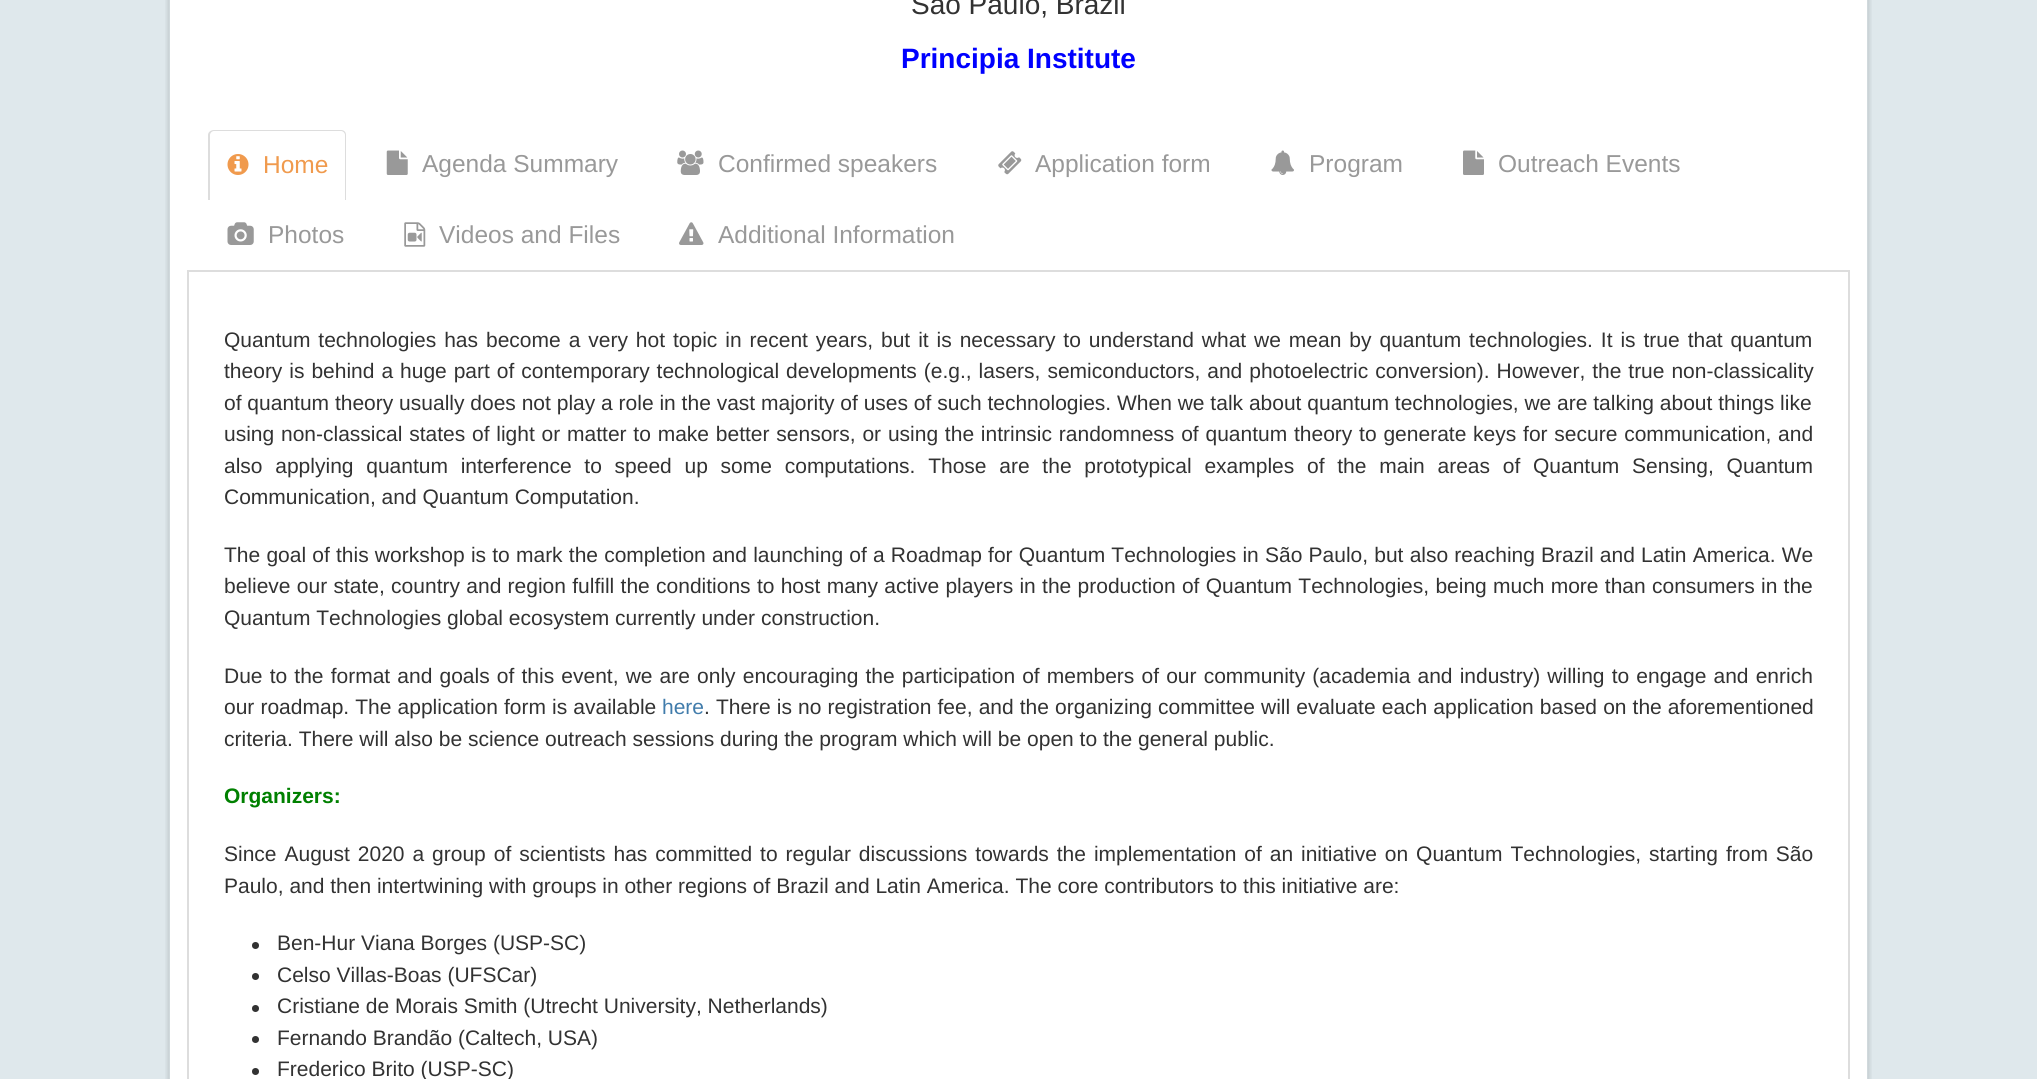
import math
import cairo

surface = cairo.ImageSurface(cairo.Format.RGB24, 2037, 1079)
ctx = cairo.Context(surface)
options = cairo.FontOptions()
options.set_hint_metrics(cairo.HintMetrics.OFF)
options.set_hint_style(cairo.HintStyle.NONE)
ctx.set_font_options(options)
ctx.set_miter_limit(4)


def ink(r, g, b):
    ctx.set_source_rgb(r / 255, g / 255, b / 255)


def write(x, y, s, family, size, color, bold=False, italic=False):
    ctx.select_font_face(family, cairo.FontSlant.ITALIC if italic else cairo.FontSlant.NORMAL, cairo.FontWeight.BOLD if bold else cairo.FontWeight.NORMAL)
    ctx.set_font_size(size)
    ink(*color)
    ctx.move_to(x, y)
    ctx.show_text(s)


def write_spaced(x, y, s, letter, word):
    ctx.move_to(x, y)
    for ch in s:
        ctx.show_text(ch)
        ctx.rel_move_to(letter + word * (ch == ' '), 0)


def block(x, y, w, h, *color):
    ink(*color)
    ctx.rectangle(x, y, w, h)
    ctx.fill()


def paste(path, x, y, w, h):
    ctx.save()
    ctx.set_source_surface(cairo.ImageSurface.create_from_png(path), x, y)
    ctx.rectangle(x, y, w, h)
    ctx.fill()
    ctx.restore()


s1 = dict(family="Liberation Sans", size=28, color=(50, 50, 50))
s2 = dict(family="Liberation Sans", size=28, color=(0, 0, 255), bold=True)
s3 = dict(family="Liberation Sans", size=24.5, color=(240, 154, 77))
s4 = dict(family="Liberation Sans", size=24.5, color=(153, 153, 153))
s5 = dict(family="Liberation Sans", size=21, color=(50, 50, 50))
s6 = dict(family="Liberation Sans", size=21, color=(65, 124, 171))
s7 = dict(family="Liberation Sans", size=21, color=(0, 128, 0), bold=True)

ink(223, 232, 236)
ctx.paint()
paste("pic1.png", 165, 0, 5, 1079)
paste("pic2.png", 1867, 0, 5, 1079)
block(170, 0, 1697, 1079, 255, 255, 255)
write(911, 14, "São Paulo, Brazil", **s1)
write(901, 68, "Principia Institute", **s2)
ink(221, 221, 221)
ctx.set_fill_rule(cairo.FillRule.EVEN_ODD)
ctx.new_path()
ctx.move_to(214, 130)
ctx.line_to(341, 130)
ctx.curve_to(344, 130, 346, 132, 346, 135)
ctx.line_to(346, 200)
ctx.line_to(208, 200)
ctx.line_to(208, 135)
ctx.curve_to(208, 132, 211, 130, 214, 130)
ctx.close_path()
ctx.move_to(214, 131)
ctx.line_to(341, 131)
ctx.curve_to(343, 131, 345, 133, 345, 135)
ctx.line_to(345, 200)
ctx.line_to(210, 200)
ctx.line_to(210, 135)
ctx.curve_to(210, 133, 212, 131, 214, 131)
ctx.close_path()
ctx.fill()
paste("pic3.png", 227, 154, 22, 21)
write(263, 173, "Home", **s3)
paste("pic4.png", 386, 150, 22, 25)
write(422, 172, "Agenda Summary", **s4)
paste("pic5.png", 677, 150, 27, 25)
write(718, 172, "Confirmed speakers", **s4)
paste("pic6.png", 998, 151, 24, 24)
write(1035, 172, "Application form", **s4)
paste("pic7.png", 1271, 150, 23, 25)
write(1309, 172, "Program", **s4)
paste("pic8.png", 1463, 150, 21, 25)
write(1498, 172, "Outreach Events", **s4)
paste("pic9.png", 227, 222, 27, 23)
write(268, 243, "Photos", **s4)
paste("pic10.png", 404, 222, 22, 25)
write(439, 243, "Videos and Files", **s4)
paste("pic11.png", 679, 222, 25, 23)
write(718, 243, "Additional Information", **s4)
ctx.rectangle(188, 271, 1661, 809)
ink(221, 221, 221)
ctx.stroke()
ctx.set_font_size(21)
ink(50, 50, 50)
write_spaced(224, 347, "Quantum technologies has become a very hot topic in recent years, but it is necessary to understand what we mean by quantum technologies. It is true that quantum", 0, 2.1)
write_spaced(224, 378, "theory is behind a huge part of contemporary technological developments (e.g., lasers, semiconductors, and photoelectric conversion). However, the true non-classicality", 0, 1.1)
write(224, 410, "of quantum theory usually does not play a role in the vast majority of uses of such technologies. When we talk about quantum technologies, we are talking about things like", **s5)
write_spaced(224, 441, "using non-classical states of light or matter to make better sensors, or using the intrinsic randomness of quantum theory to generate keys for secure communication, and", 0, 0.95)
write_spaced(224, 473, "also applying quantum interference to speed up some computations. Those are the prototypical examples of the main areas of Quantum Sensing, Quantum", 0, 6.9)
write(224, 504, "Communication, and Quantum Computation.", **s5)
write_spaced(224, 562, "The goal of this workshop is to mark the completion and launching of a Roadmap for Quantum Technologies in São Paulo, but also reaching Brazil and Latin America. We", 0, 0.35)
write_spaced(224, 593, "believe our state, country and region fulfill the conditions to host many active players in the production of Quantum Technologies, being much more than consumers in the", 0, 0.45)
write(224, 625, "Quantum Technologies global ecosystem currently under construction.", **s5)
write_spaced(224, 683, "Due to the format and goals of this event, we are only encouraging the participation of members of our community (academia and industry) willing to engage and enrich", 0, 1.3)
write_spaced(224, 714, "our roadmap. The application form is available", 0, 0.25)
write(662, 714, "here", **s6)
ink(50, 50, 50)
write_spaced(704, 714, ". There is no registration fee, and the organizing committee will evaluate each application based on the aforementioned", 0, 0.25)
write(224, 746, "criteria. There will also be science outreach sessions during the program which will be open to the general public.", **s5)
write(224, 803, "Organizers:", **s7)
ctx.select_font_face("Liberation Sans")
ink(50, 50, 50)
write_spaced(224, 861, "Since August 2020 a group of scientists has committed to regular discussions towards the implementation of an initiative on Quantum Technologies, starting from São", 0, 2.1)
write(224, 893, "Paulo, and then intertwining with groups in other regions of Brazil and Latin America. The core contributors to this initiative are:", **s5)
ctx.new_path()
ctx.arc(255.5, 945.5, 3.5, 0, 2 * math.pi)
ctx.fill()
write(277, 950, "Ben-Hur Viana Borges (USP-SC)", **s5)
ctx.new_path()
ctx.arc(255.5, 976.5, 3.5, 0, 2 * math.pi)
ctx.fill()
write(277, 982, "Celso Villas-Boas (UFSCar)", **s5)
ctx.new_path()
ctx.arc(255.5, 1008.5, 3.5, 0, 2 * math.pi)
ctx.fill()
write(277, 1013, "Cristiane de Morais Smith (Utrecht University, Netherlands)", **s5)
ctx.new_path()
ctx.arc(255.5, 1039.5, 3.5, 0, 2 * math.pi)
ctx.fill()
write(277, 1045, "Fernando Brandão (Caltech, USA)", **s5)
ctx.new_path()
ctx.arc(255.5, 1071.5, 3.5, 0, 2 * math.pi)
ctx.fill()
write(277, 1076, "Frederico Brito (USP-SC)", **s5)
surface.write_to_png("screenshot.png")
